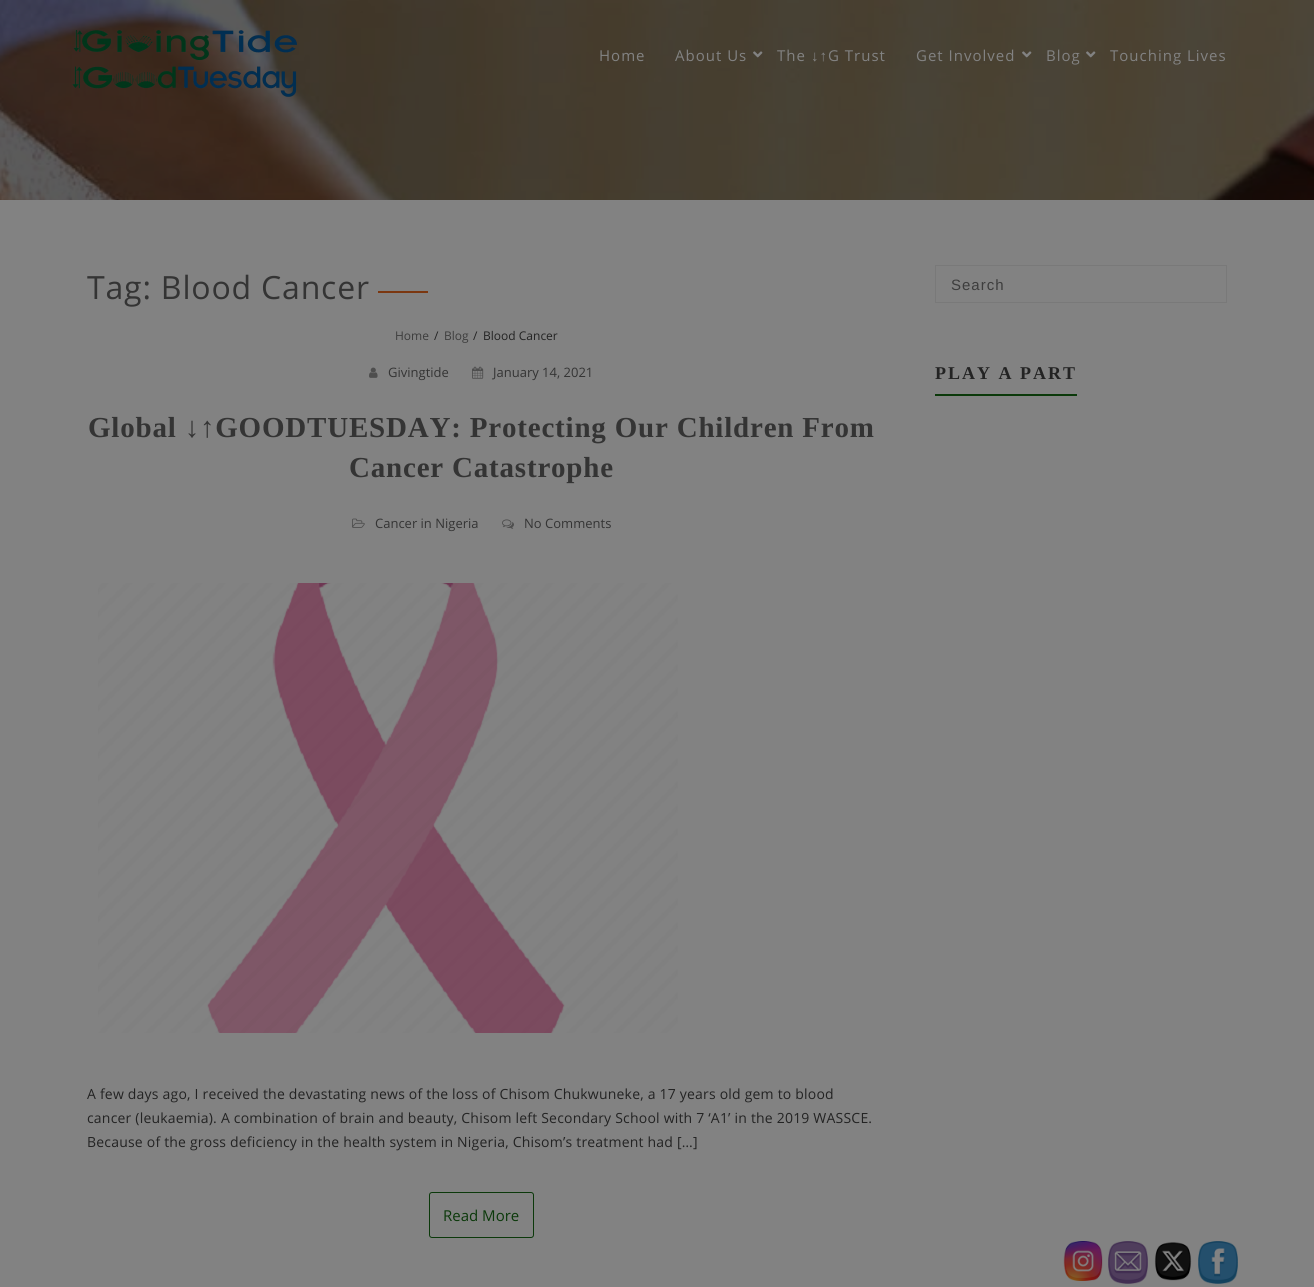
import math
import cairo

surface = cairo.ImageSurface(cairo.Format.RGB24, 1314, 1287)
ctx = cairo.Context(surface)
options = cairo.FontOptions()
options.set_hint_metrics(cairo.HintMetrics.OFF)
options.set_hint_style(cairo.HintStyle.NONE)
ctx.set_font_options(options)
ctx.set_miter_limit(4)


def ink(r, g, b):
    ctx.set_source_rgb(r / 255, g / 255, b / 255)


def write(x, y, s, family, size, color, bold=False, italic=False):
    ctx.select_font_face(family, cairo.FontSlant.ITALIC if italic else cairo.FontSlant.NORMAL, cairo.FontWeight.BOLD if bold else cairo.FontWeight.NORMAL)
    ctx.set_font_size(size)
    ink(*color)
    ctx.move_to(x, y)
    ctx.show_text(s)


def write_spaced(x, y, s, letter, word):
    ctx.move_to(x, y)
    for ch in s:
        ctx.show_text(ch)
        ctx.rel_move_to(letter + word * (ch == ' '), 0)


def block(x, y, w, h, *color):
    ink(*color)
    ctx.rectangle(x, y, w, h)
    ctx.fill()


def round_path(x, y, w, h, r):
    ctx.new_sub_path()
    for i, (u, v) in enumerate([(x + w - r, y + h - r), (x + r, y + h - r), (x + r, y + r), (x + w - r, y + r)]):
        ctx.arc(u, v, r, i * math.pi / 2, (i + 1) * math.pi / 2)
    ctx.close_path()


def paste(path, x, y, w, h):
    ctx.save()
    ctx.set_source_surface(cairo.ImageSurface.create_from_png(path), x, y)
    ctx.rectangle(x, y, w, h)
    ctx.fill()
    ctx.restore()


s1 = dict(family="Open Sans", size=12, color=(61, 61, 61))
s2 = dict(family="Open Sans", size=12, color=(35, 35, 35))
s3 = dict(family="Open Sans", size=13, color=(52, 52, 52))
s4 = dict(family="Open Sans", size=15, color=(11, 57, 10))

ink(130, 130, 130)
ctx.paint()
paste("pic1.png", 0, 0, 1314, 200)
paste("pic2.png", 72, 30, 225, 67)
ctx.select_font_face("Open Sans")
ctx.set_font_size(15)
ink(130, 130, 130)
write_spaced(599, 61, "Home", 1, 0)
write_spaced(675, 61, "About Us", 1, 0)
paste("pic3.png", 753, 51, 10, 7)
write_spaced(777, 61, "The", 1, 0)
ctx.select_font_face("Liberation Sans")
write_spaced(811, 61, "↓↑", 1, 0)
ctx.select_font_face("Open Sans")
write_spaced(828, 61, "G Trust", 1, 0)
write_spaced(916, 61, "Get Involved", 1, 0)
paste("pic4.png", 1022, 51, 10, 7)
write_spaced(1046, 61, "Blog", 1, 0)
paste("pic5.png", 1086, 51, 10, 7)
write_spaced(1110, 61, "Touching Lives", 1, 0)
ctx.set_font_size(32)
ink(52, 52, 52)
write_spaced(87, 299, "Tag: Blood Cancer", 0.8, 0)
block(378, 291, 50, 2, 123, 55, 16)
write(395, 340, "Home", **s1)
write(434, 340, "/", **s2)
write(444, 340, "Blog", **s1)
write(473, 340, "/", **s2)
write(483, 340, "Blood Cancer", **s2)
paste("pic6.png", 369, 367, 9, 11)
write(388, 377, "Givingtide", **s3)
paste("pic7.png", 472, 366, 12, 13)
write(493, 377, "January 14, 2021", **s3)
ctx.select_font_face("Liberation Serif", cairo.FontSlant.NORMAL, cairo.FontWeight.BOLD)
ctx.set_font_size(29)
write_spaced(88, 437, "Global ↓↑GOODTUESDAY: Protecting Our Children From", 0.8, 0)
write_spaced(349, 477, "Cancer Catastrophe", 0.8, 0)
paste("pic8.png", 352, 518, 13, 10)
write(375, 528, "Cancer in Nigeria", **s3)
paste("pic9.png", 502, 519, 12, 10)
write(524, 528, "No Comments", **s3)
paste("pic10.png", 98, 583, 580, 450)
ctx.set_font_size(14)
ink(35, 35, 35)
write_spaced(87, 1099, "A few days ago, I received the devastating news of the loss of Chisom Chukwuneke, a 17 years old gem to blood", 0.2, 0)
write_spaced(87, 1123, "cancer (leukaemia). A combination of brain and beauty, Chisom left Secondary School with 7 ‘A1’ in the 2019 WASSCE.", 0.2, 0)
write_spaced(87, 1147, "Because of the gross deficiency in the health system in Nigeria, Chisom’s treatment had […]", 0.2, 0)
round_path(429.5, 1192.5, 104, 45, 2.5)
ink(11, 57, 10)
ctx.set_line_width(1)
ctx.stroke()
write(443, 1221, "Read More", **s4)
ctx.rectangle(935.5, 265.5, 291, 37)
ink(121, 121, 121)
ctx.stroke()
ctx.select_font_face("Liberation Sans")
ink(61, 61, 61)
write_spaced(951, 290, "Search", 1, 0)
block(935, 394, 142, 2, 11, 57, 10)
ctx.select_font_face("Liberation Serif", cairo.FontSlant.NORMAL, cairo.FontWeight.BOLD)
ctx.set_font_size(18)
ink(35, 35, 35)
write_spaced(935, 379, "PLAY A PART", 2, 0)
paste("pic11.png", 1063, 1241, 40, 40)
paste("pic12.png", 1108, 1241, 40, 43)
paste("pic13.png", 1154, 1242, 38, 39)
paste("pic14.png", 1198, 1241, 40, 43)
surface.write_to_png("screenshot.png")
